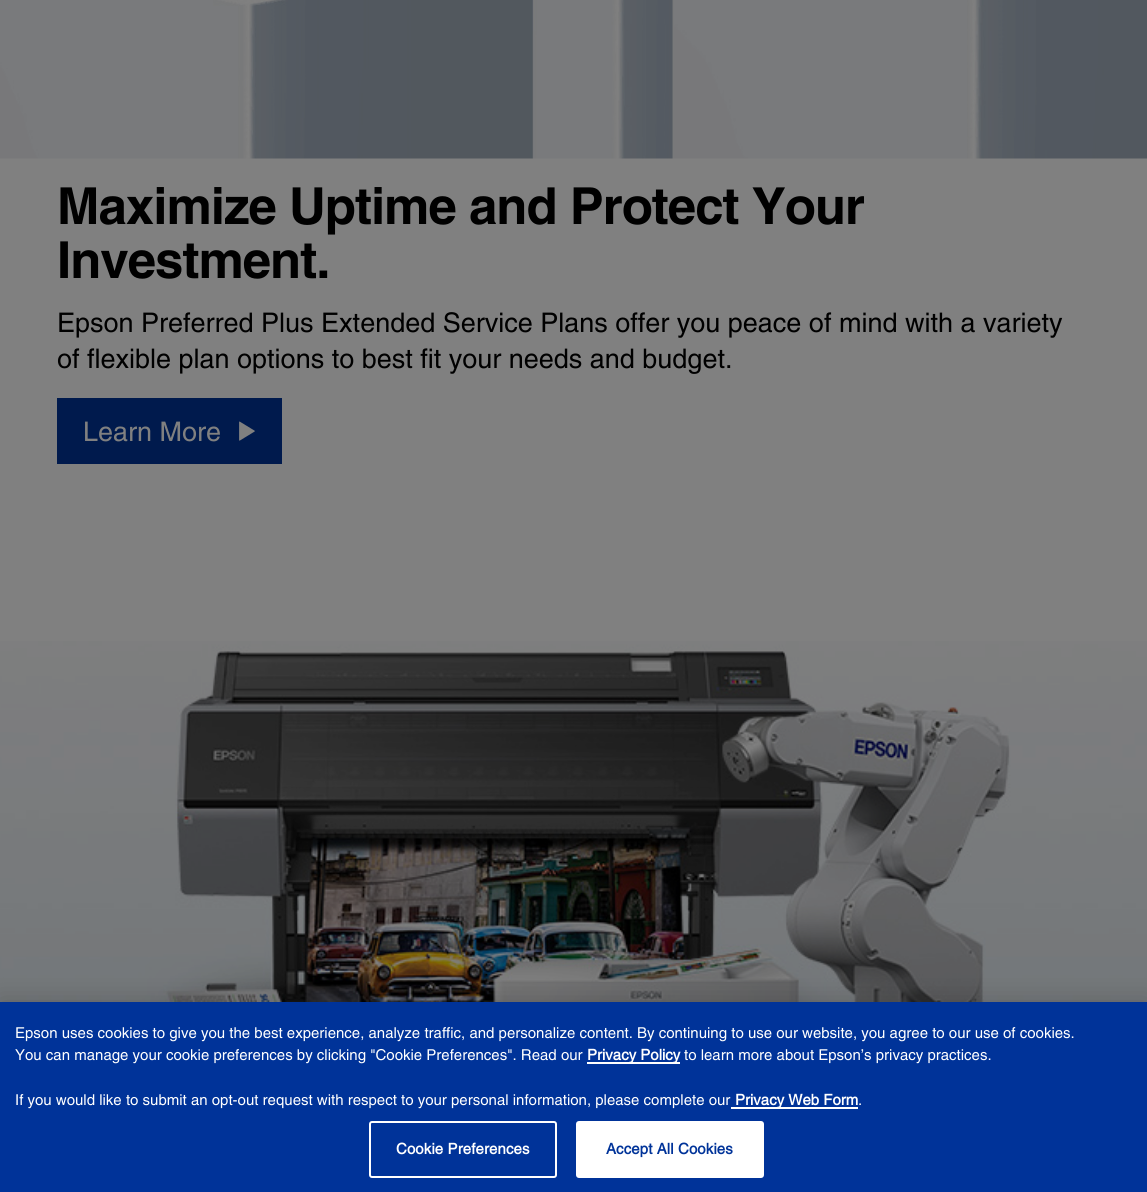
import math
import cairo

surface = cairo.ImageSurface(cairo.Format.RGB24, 1147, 1192)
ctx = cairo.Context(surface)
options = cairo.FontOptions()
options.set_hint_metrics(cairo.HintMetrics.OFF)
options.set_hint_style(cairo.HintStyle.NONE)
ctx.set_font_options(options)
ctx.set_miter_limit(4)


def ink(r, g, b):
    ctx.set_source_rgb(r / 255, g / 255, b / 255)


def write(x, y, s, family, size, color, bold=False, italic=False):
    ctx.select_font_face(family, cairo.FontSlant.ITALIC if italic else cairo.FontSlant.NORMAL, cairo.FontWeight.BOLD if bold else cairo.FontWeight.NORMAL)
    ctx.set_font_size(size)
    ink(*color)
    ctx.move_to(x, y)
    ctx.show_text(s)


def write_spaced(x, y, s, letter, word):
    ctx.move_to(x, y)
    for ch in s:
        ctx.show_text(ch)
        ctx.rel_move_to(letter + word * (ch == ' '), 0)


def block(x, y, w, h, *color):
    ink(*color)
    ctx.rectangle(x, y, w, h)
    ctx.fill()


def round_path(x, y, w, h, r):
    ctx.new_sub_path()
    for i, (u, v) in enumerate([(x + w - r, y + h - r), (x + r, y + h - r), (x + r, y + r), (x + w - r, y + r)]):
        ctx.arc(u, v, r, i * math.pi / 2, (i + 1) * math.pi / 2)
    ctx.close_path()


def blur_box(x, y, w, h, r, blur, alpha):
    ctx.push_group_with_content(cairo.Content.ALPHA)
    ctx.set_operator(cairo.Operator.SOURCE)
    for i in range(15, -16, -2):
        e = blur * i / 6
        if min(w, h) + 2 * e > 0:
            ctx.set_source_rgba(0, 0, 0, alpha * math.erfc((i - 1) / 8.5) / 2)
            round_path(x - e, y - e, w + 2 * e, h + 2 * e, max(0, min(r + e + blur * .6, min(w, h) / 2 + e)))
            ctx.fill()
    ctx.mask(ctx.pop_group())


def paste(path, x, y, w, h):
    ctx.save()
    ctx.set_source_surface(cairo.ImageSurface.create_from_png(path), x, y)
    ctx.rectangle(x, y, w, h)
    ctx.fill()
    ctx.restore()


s1 = dict(family="Helvetica", size=27, color=(0, 0, 0))
s2 = dict(family="Helvetica", size=27, color=(128, 128, 128))
s3 = dict(family="Helvetica", size=15, color=(255, 255, 255))
s4 = dict(family="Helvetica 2", size=15, color=(255, 255, 255), bold=True)

ink(128, 128, 128)
ctx.paint()
paste("pic1.png", 0, 0, 1147, 159)
ctx.select_font_face("Helvetica", cairo.FontSlant.NORMAL, cairo.FontWeight.BOLD)
ctx.set_font_size(51)
ink(0, 0, 0)
write_spaced(57, 224, "Maximize Uptime and Protect Your", -1, 0)
write_spaced(57, 278, "Investment.", -1, 0)
write(57, 332, "Epson Preferred Plus Extended Service Plans offer you peace of mind with a variety", **s1)
write(57, 368, "of flexible plan options to best fit your needs and budget.", **s1)
block(57, 398, 225, 66, 0, 26, 77)
write(83, 441, "Learn More", **s2)
paste("pic2.png", 239, 421, 16, 20)
paste("pic3.png", 0, 641, 1147, 361)
ink(0, 0, 0)
blur_box(0, 1002, 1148, 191, 0, 13.5, 0.2)
block(0, 1002, 1147, 190, 0, 51, 153)
write(15, 1038, "Epson uses cookies to give you the best experience, analyze traffic, and personalize content. By continuing to use our website, you agree to our use of cookies.", **s3)
write(15, 1060, "You can manage your cookie preferences by clicking \"Cookie Preferences\". Read our", **s3)
block(587, 1062, 93, 2, 255, 255, 255)
write(587, 1060, "Privacy Policy", **s4)
write(684, 1060, "to learn more about Epson’s privacy practices.", **s3)
write(15, 1105, "If you would like to submit an opt-out request with respect to your personal information, please complete our", **s3)
block(731, 1107, 127, 2, 255, 255, 255)
write(735, 1105, "Privacy Web Form", **s4)
write(858, 1105, ".", **s3)
round_path(370, 1122, 186, 55, 2)
ctx.stroke()
ctx.select_font_face("Helvetica 2", cairo.FontSlant.NORMAL, cairo.FontWeight.BOLD)
write_spaced(396, 1154, "Cookie Preferences", 0.1, 0)
round_path(577, 1122, 186, 55, 2)
ctx.fill_preserve()
ctx.stroke()
ink(0, 51, 153)
write_spaced(606, 1154, "Accept All Cookies", 0.1, 0)
surface.write_to_png("screenshot.png")
